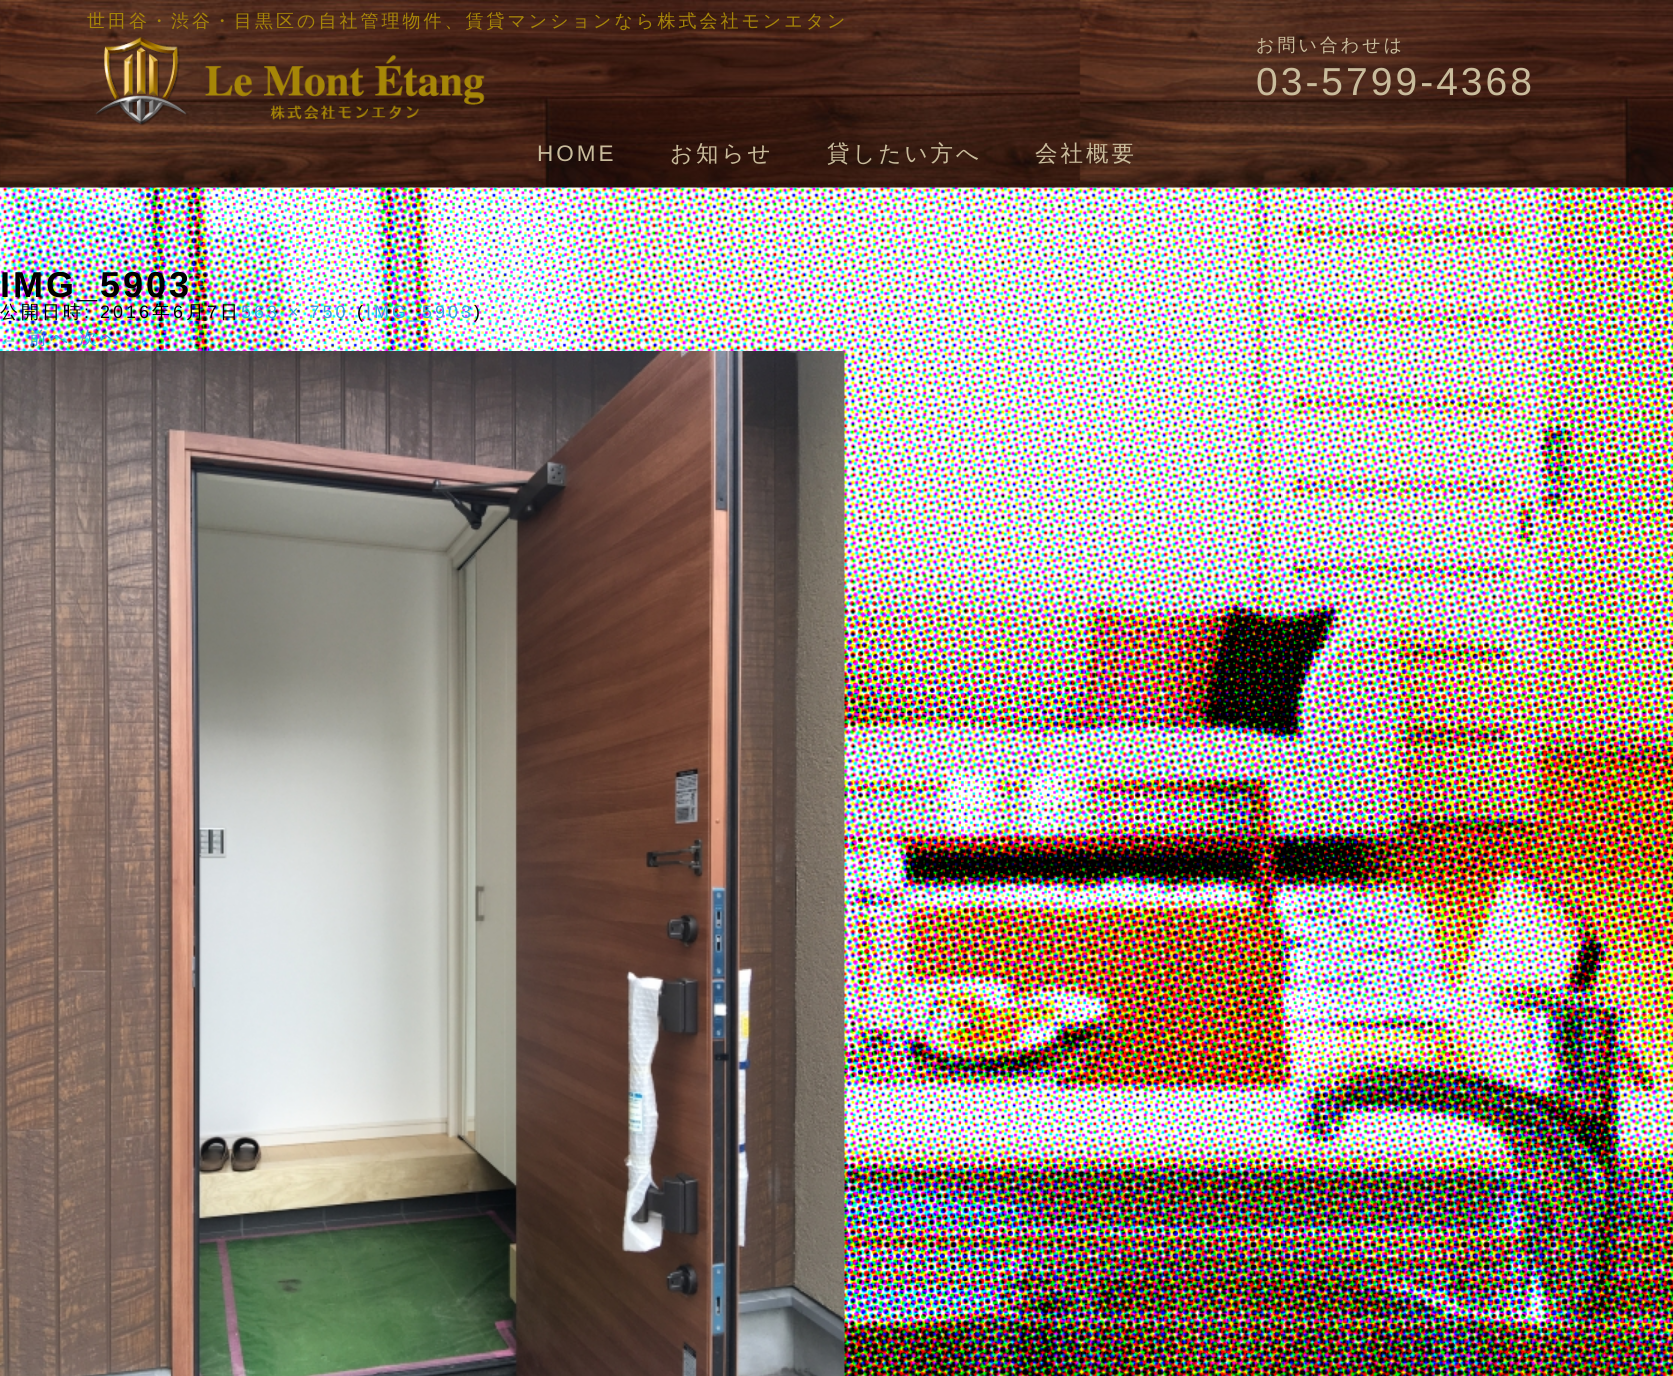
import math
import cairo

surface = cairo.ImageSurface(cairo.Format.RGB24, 1673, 1376)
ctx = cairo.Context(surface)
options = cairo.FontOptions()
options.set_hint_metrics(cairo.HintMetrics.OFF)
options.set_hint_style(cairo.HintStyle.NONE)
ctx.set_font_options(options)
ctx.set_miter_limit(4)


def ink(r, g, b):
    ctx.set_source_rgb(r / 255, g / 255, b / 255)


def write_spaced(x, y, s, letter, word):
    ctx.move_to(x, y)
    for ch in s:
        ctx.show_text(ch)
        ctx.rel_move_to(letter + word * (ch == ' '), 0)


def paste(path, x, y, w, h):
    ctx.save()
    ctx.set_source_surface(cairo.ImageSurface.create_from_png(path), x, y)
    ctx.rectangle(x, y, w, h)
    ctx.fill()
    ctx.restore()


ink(255, 255, 255)
ctx.paint()
paste("pic1.png", 0, 187, 1673, 1189)
paste("pic2.png", 0, 0, 1673, 188)
ctx.select_font_face("WenQuanYi Zen Hei Medium")
ctx.set_font_size(18)
ink(167, 134, 8)
write_spaced(87, 27, "世田谷・渋谷・目黒区の自社管理物件、賃貸マンションなら株式会社モンエタン", 3, 0)
paste("pic3.png", 95, 37, 390, 89)
ink(201, 188, 156)
write_spaced(1256, 51, "お問い合わせは", 3, 0)
ctx.select_font_face("Liberation Sans")
ctx.set_font_size(39)
write_spaced(1256, 95, "03-5799-4368", 3, 0)
ctx.set_font_size(22.5)
write_spaced(537, 161, "HOME", 3, 0)
ctx.select_font_face("WenQuanYi Zen Hei Medium")
write_spaced(670, 161, "お知らせ", 3, 0)
write_spaced(827, 161, "貸したい方へ", 3, 0)
write_spaced(1035, 161, "会社概要", 3, 0)
ctx.select_font_face("Liberation Sans", cairo.FontSlant.NORMAL, cairo.FontWeight.BOLD)
ctx.set_font_size(36)
ink(0, 0, 0)
write_spaced(0, 297, "IMG_5903", 3, 0)
ctx.select_font_face("WenQuanYi Zen Hei Medium")
ctx.set_font_size(18)
write_spaced(0, 318, "公開日時", 3, 0)
ctx.select_font_face("Liberation Sans")
write_spaced(84, 318, ": 2016", 3, 0)
ctx.select_font_face("WenQuanYi Zen Hei Medium")
write_spaced(152, 318, "年", 3, 0)
ctx.select_font_face("Liberation Sans")
write_spaced(173, 318, "6", 3, 0)
ctx.select_font_face("WenQuanYi Zen Hei Medium")
write_spaced(186, 318, "月", 3, 0)
ctx.select_font_face("Liberation Sans")
write_spaced(207, 318, "7", 3, 0)
ctx.select_font_face("WenQuanYi Zen Hei Medium")
write_spaced(220, 318, "日", 3, 0)
ctx.select_font_face("Liberation Sans")
ink(46, 167, 224)
write_spaced(241, 318, "563 × 750", 3, 0)
ink(0, 0, 0)
write_spaced(357, 318, "(", 3, 0)
ink(46, 167, 224)
write_spaced(366, 318, "IMG_5903", 3, 0)
ink(0, 0, 0)
write_spaced(474, 318, ")", 3, 0)
ink(46, 167, 224)
write_spaced(0, 344, "←", 3, 0)
ctx.select_font_face("WenQuanYi Zen Hei Medium")
write_spaced(29, 344, "前へ", 3, 0)
write_spaced(79, 344, "次へ", 3, 0)
ctx.select_font_face("Liberation Sans")
write_spaced(130, 344, "→", 3, 0)
paste("pic4.png", 0, 351, 845, 1025)
surface.write_to_png("screenshot.png")
